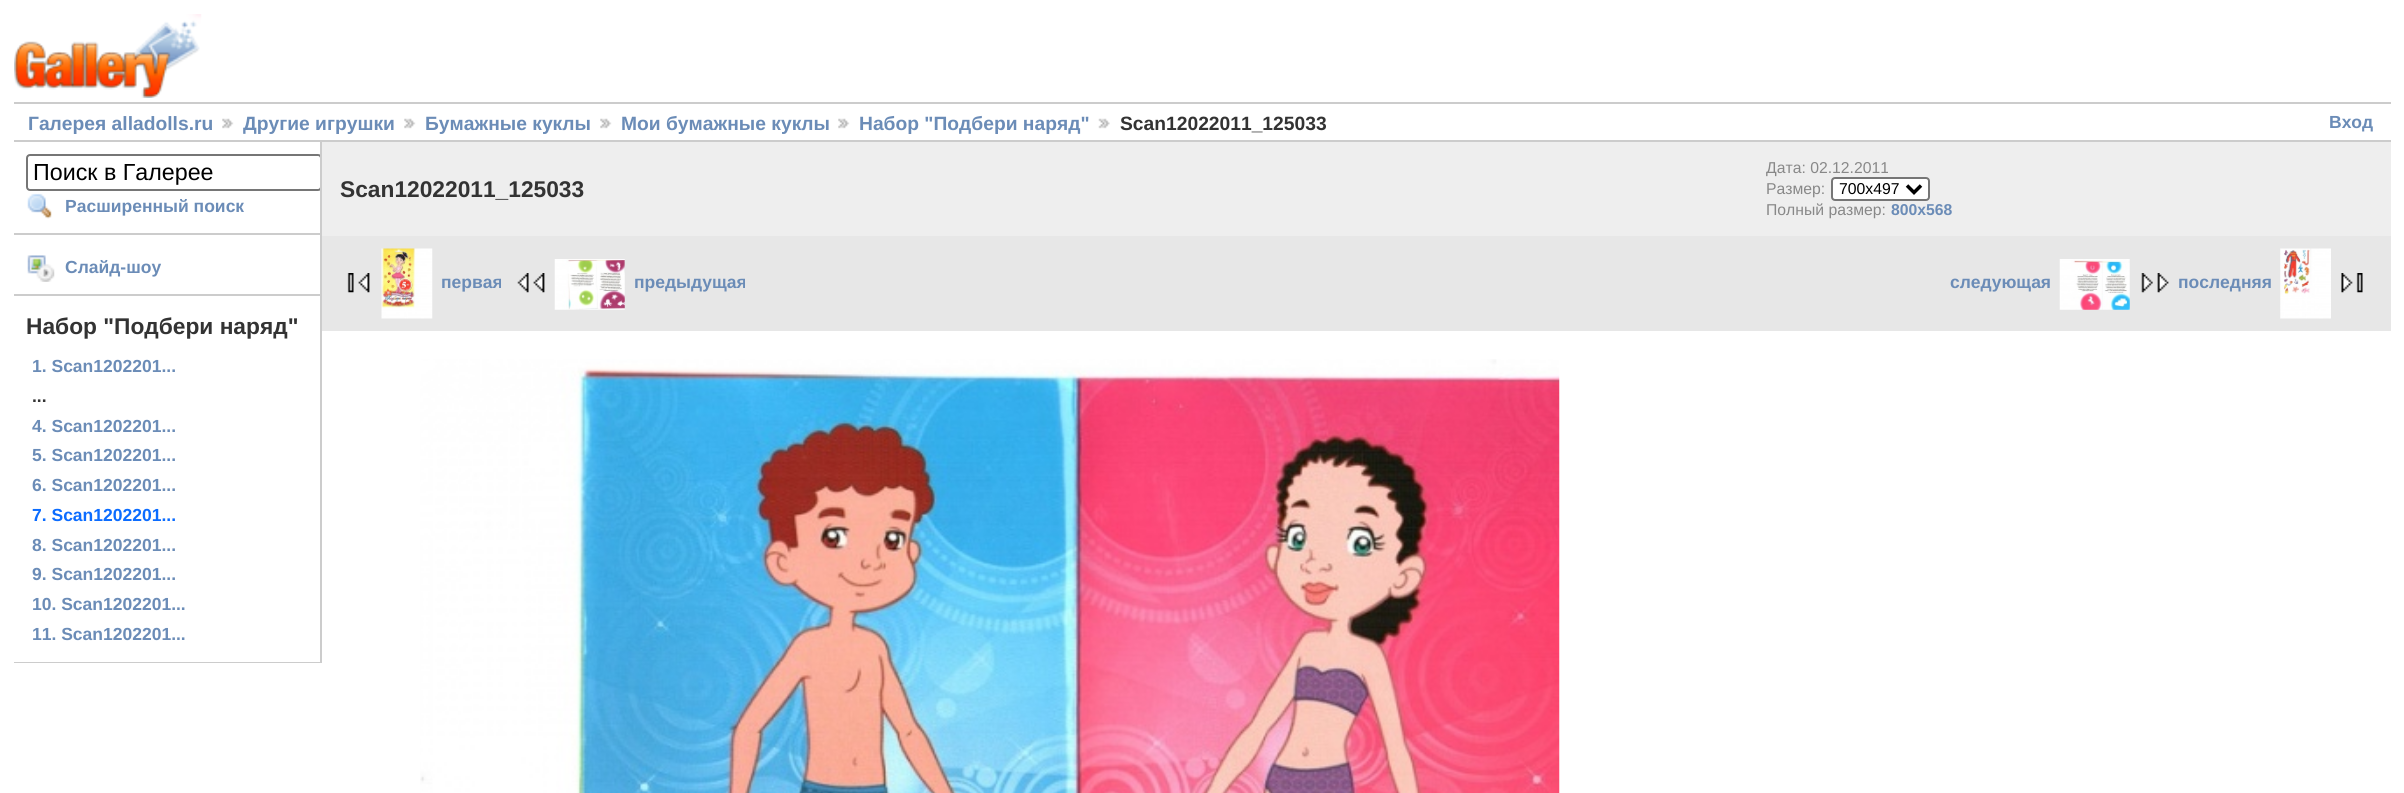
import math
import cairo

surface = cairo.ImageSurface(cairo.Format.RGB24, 2404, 793)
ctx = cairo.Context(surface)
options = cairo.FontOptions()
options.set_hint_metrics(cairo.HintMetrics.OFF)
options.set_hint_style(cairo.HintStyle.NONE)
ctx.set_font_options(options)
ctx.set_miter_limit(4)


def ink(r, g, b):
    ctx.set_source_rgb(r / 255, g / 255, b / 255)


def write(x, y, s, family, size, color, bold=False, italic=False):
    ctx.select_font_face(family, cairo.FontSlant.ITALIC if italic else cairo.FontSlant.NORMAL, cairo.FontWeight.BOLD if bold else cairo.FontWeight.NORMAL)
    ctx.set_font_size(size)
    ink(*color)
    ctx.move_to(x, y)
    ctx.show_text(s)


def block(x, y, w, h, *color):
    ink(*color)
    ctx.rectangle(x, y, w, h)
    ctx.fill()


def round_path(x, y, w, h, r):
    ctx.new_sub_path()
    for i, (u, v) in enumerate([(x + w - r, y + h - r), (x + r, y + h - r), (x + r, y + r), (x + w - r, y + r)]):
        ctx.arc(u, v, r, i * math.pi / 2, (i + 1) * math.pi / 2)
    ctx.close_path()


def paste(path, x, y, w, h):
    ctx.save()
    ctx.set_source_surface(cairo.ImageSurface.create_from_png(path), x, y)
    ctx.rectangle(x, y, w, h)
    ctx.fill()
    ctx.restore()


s1 = dict(family="Liberation Sans", size=19.25, color=(107, 140, 183), bold=True)
s2 = dict(family="Liberation Sans", size=19.25, color=(51, 51, 51), bold=True)
s3 = dict(family="Liberation Sans", size=17.5, color=(107, 140, 183), bold=True)
s4 = dict(family="Liberation Sans", size=23.25, color=(0, 0, 0))
s5 = dict(family="Liberation Sans", size=22.75, color=(51, 51, 51), bold=True)
s6 = dict(family="Liberation Sans", size=17.5, color=(51, 51, 51), bold=True)
s7 = dict(family="Liberation Sans", size=17.5, color=(11, 108, 255), bold=True)
s8 = dict(family="Liberation Sans", size=15.75, color=(136, 136, 136))
s9 = dict(family="Liberation Sans", size=15.75, color=(0, 0, 0))
s10 = dict(family="Liberation Sans", size=15.75, color=(107, 140, 183), bold=True)

ink(255, 255, 255)
ctx.paint()
paste("pic1.png", 14, 14, 188, 84)
block(14, 102, 2377, 2, 204, 204, 204)
block(14, 140, 2377, 2, 204, 204, 204)
write(28, 130, "Галерея alladolls.ru", **s1)
paste("pic2.png", 222, 118, 12, 11)
write(243, 130, "Другие игрушки", **s1)
paste("pic3.png", 404, 118, 12, 11)
write(425, 130, "Бумажные куклы", **s1)
paste("pic3.png", 600, 118, 12, 11)
write(621, 130, "Мои бумажные куклы", **s1)
paste("pic2.png", 838, 118, 12, 11)
write(859, 130, "Набор \"Подбери наряд\"", **s1)
paste("pic4.png", 1098, 118, 12, 11)
write(1120, 130, "Scan12022011_125033", **s2)
write(2329, 128, "Вход", **s3)
block(320, 142, 2, 521, 204, 204, 204)
block(14, 233, 306, 2, 204, 204, 204)
ctx.save()
ctx.rectangle(14, 142, 306, 521)
ctx.clip()
round_path(27, 155, 294, 35, 3)
ink(118, 118, 118)
ctx.stroke()
ctx.restore()
write(33, 180, "Поиск в Галерее", **s4)
paste("pic5.png", 27, 193, 25, 26)
write(65, 212, "Расширенный поиск", **s3)
block(14, 294, 306, 2, 204, 204, 204)
paste("pic6.png", 27, 255, 28, 27)
write(65, 273, "Слайд-шоу", **s3)
block(14, 662, 306, 1, 204, 204, 204)
write(26, 334, "Набор \"Подбери наряд\"", **s5)
write(32, 372, "1. Scan1202201...", **s3)
write(32, 402, "...", **s6)
write(32, 432, "4. Scan1202201...", **s3)
write(32, 461, "5. Scan1202201...", **s3)
write(32, 491, "6. Scan1202201...", **s3)
write(32, 521, "7. Scan1202201...", **s7)
write(32, 551, "8. Scan1202201...", **s3)
write(32, 580, "9. Scan1202201...", **s3)
write(32, 610, "10. Scan1202201...", **s3)
write(32, 640, "11. Scan1202201...", **s3)
block(322, 142, 2069, 94, 238, 238, 238)
write(340, 197, "Scan12022011_125033", **s5)
write(1766, 173, "Дата: 02.12.2011", **s8)
write(1766, 194, "Размер:", **s8)
ink(255, 255, 255)
round_path(1832, 178, 97, 22, 3)
ctx.fill_preserve()
ink(118, 118, 118)
ctx.stroke()
ctx.new_path()
ctx.move_to(1907, 185.5)
ctx.line_to(1914, 192.5)
ctx.line_to(1921, 185.5)
ink(0, 0, 0)
ctx.set_line_width(3.5)
ctx.stroke()
write(1839, 194, "700x497", **s9)
write(1766, 215, "Полный размер:", **s8)
write(1891, 215, "800x568", **s10)
block(322, 236, 2069, 95, 231, 231, 231)
paste("pic7.png", 347, 273, 23, 20)
paste("pic8.png", 381, 248, 52, 71)
write(441, 288, "первая", **s3)
paste("pic9.png", 517, 273, 28, 20)
paste("pic10.png", 554, 259, 71, 51)
write(634, 288, "предыдущая", **s3)
write(1950, 288, "следующая", **s3)
paste("pic11.png", 2059, 259, 71, 51)
paste("pic12.png", 2141, 273, 28, 20)
write(2178, 288, "последняя", **s3)
paste("pic13.png", 2280, 248, 51, 71)
paste("pic14.png", 2341, 273, 22, 20)
paste("pic15.png", 420, 359, 1140, 434)
surface.write_to_png("screenshot.png")
